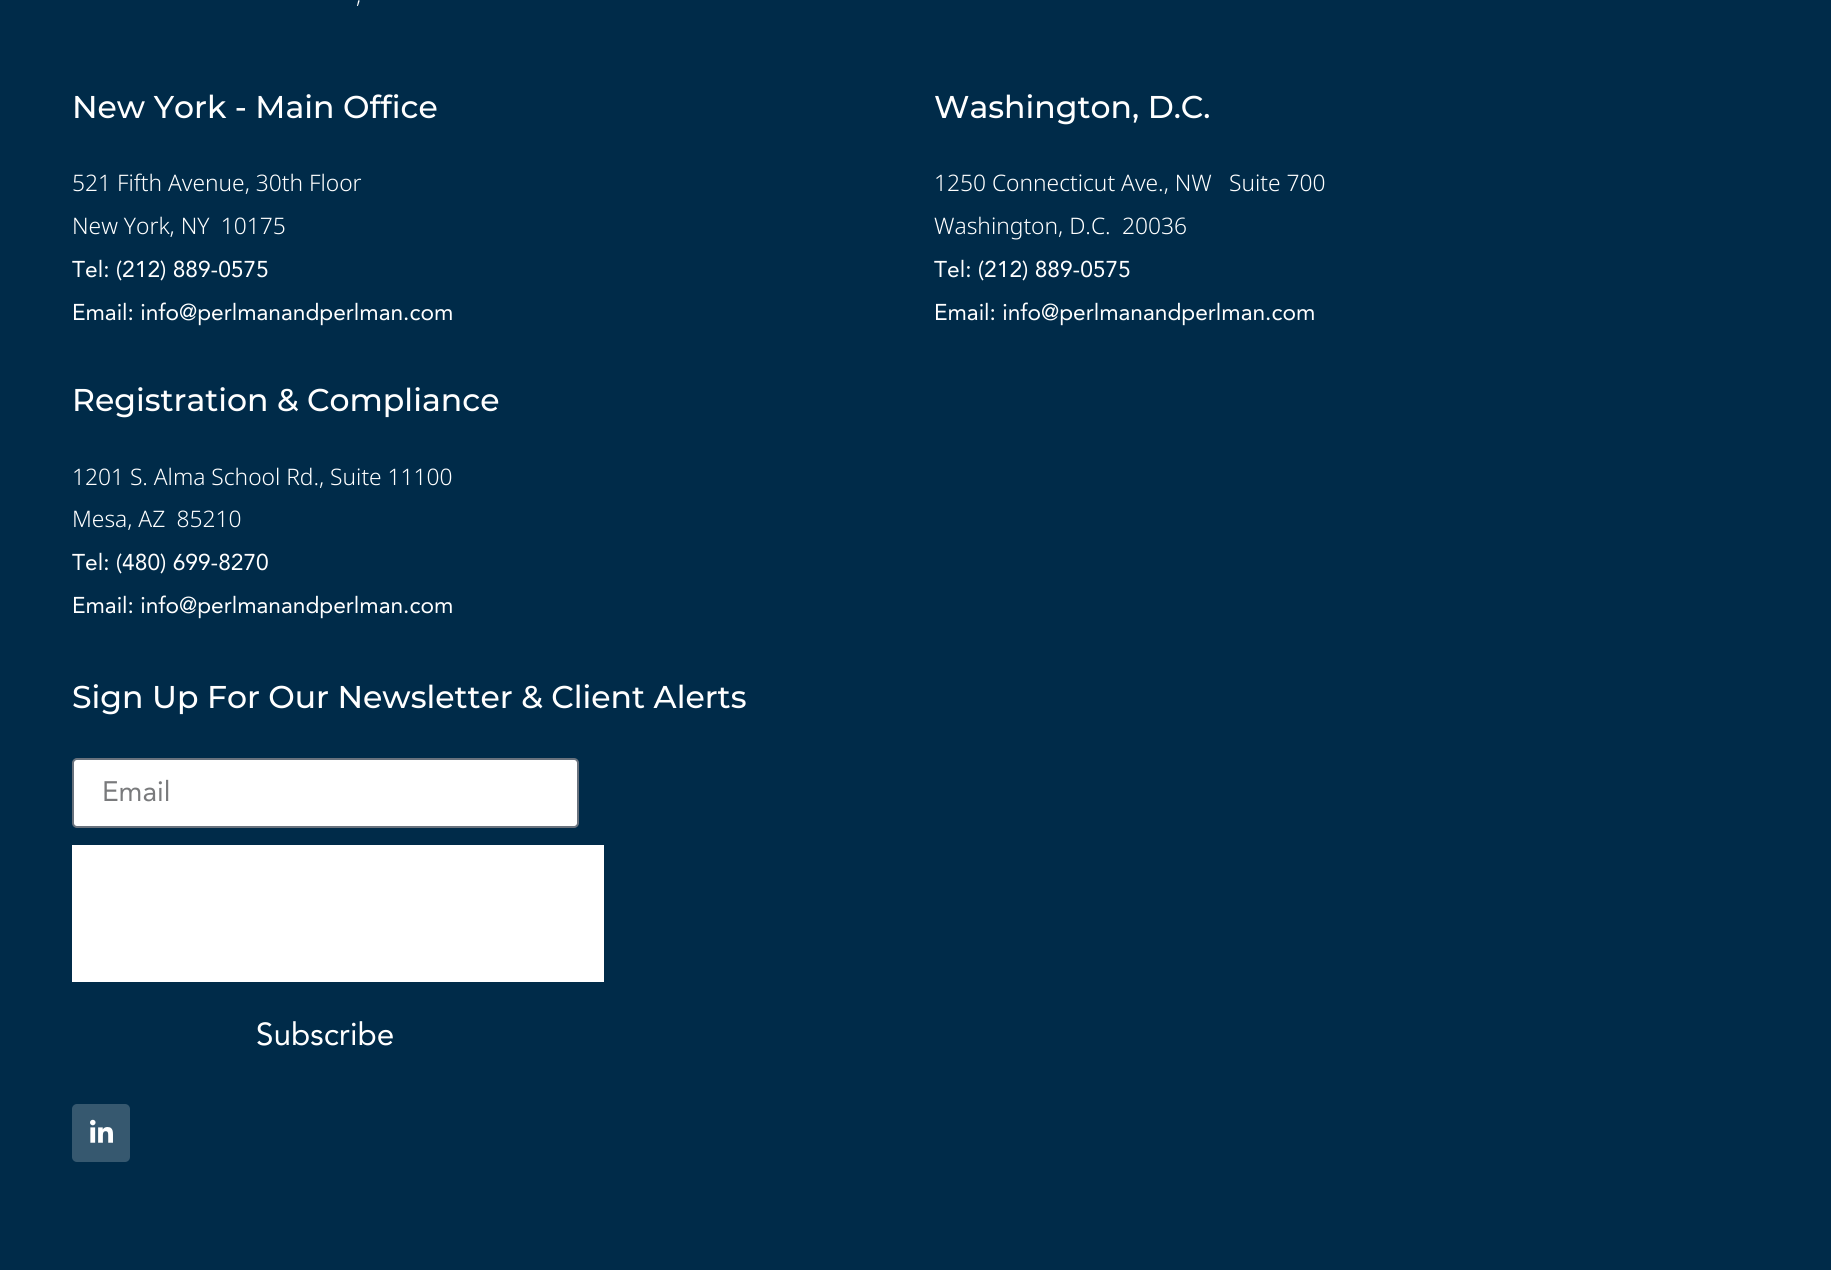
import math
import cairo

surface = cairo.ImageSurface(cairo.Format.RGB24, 1831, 1270)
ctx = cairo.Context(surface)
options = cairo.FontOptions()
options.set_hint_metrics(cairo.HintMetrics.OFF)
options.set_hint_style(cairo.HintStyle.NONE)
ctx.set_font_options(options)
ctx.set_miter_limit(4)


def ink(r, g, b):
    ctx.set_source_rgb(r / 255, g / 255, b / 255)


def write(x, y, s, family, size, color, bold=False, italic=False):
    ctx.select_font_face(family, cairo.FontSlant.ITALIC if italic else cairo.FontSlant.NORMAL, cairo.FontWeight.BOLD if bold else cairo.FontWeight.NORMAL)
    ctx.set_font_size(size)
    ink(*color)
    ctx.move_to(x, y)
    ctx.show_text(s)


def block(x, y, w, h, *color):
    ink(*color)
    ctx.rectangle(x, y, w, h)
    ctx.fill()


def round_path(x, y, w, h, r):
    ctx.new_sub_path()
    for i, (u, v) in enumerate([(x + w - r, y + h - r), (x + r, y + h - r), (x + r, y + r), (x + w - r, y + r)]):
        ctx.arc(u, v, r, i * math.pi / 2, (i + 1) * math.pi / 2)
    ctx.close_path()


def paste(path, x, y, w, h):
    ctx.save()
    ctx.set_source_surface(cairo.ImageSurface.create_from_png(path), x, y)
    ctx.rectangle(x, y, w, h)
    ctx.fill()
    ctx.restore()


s1 = dict(family="Noto Sans Light", size=22.75, color=(255, 255, 255))
s2 = dict(family="Montserrat Medium", size=31.5, color=(255, 255, 255))
s3 = dict(family="Avenir", size=22.75, color=(255, 255, 255))
s4 = dict(family="Avenir", size=28, color=(121, 122, 124))
s5 = dict(family="Avenir", size=31.5, color=(255, 255, 255))

ink(0, 43, 73)
ctx.paint()
write(356, 3, ",", **s1)
write(72, 118, "New York - Main Office", **s2)
write(72, 191, "521 Fifth Avenue, 30th Floor", **s1)
write(72, 234, "New York, NY 10175", **s1)
write(72, 277, "Tel: (212) 889-0575", **s3)
write(72, 320, "Email: info@perlmanandperlman.com", **s3)
write(934, 118, "Washington, D.C.", **s2)
write(934, 191, "1250 Connecticut Ave., NW  Suite 700", **s1)
write(934, 234, "Washington, D.C. 20036", **s1)
write(934, 277, "Tel: (212) 889-0575", **s3)
write(934, 320, "Email: info@perlmanandperlman.com", **s3)
write(72, 411, "Registration & Compliance", **s2)
write(72, 485, "1201 S. Alma School Rd., Suite 11100", **s1)
write(72, 527, "Mesa, AZ 85210", **s1)
write(72, 570, "Tel: (480) 699-8270", **s3)
write(72, 613, "Email: info@perlmanandperlman.com", **s3)
write(72, 708, "Sign Up For Our Newsletter & Client Alerts", **s2)
round_path(73, 759, 505, 68, 4)
ctx.fill_preserve()
ink(105, 114, 125)
ctx.stroke()
write(102, 801, "Email", **s4)
block(72, 845, 532, 137, 255, 255, 255)
write(256, 1045, "Subscribe", **s5)
ink(54, 88, 111)
round_path(72, 1104, 58, 58, 5)
ctx.fill()
paste("pic1.png", 90, 1119, 23, 24)
surface.write_to_png("screenshot.png")
